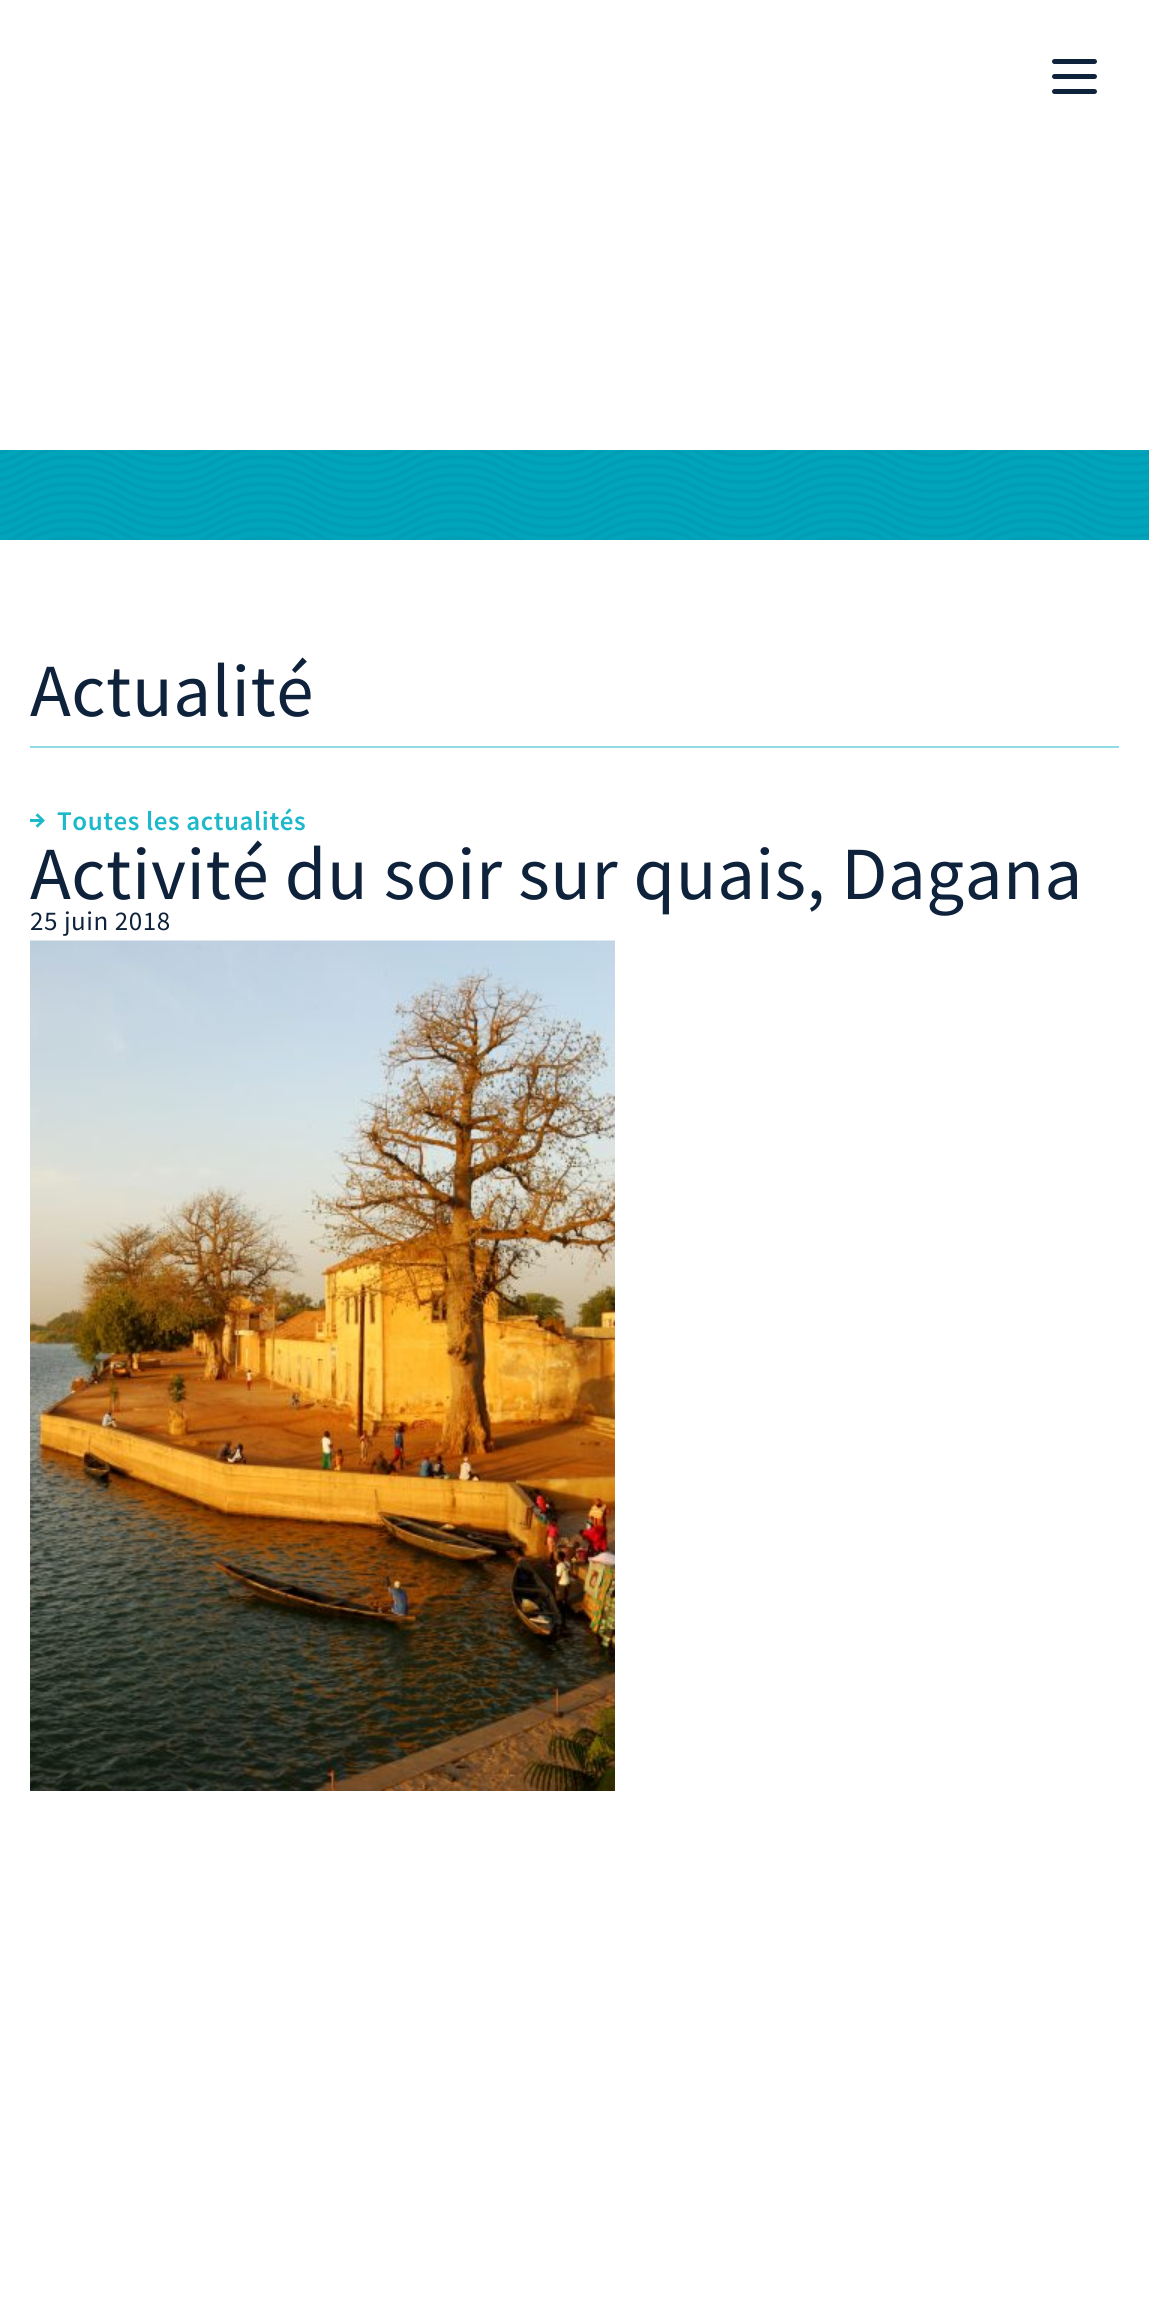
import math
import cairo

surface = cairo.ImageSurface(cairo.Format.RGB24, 1149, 2313)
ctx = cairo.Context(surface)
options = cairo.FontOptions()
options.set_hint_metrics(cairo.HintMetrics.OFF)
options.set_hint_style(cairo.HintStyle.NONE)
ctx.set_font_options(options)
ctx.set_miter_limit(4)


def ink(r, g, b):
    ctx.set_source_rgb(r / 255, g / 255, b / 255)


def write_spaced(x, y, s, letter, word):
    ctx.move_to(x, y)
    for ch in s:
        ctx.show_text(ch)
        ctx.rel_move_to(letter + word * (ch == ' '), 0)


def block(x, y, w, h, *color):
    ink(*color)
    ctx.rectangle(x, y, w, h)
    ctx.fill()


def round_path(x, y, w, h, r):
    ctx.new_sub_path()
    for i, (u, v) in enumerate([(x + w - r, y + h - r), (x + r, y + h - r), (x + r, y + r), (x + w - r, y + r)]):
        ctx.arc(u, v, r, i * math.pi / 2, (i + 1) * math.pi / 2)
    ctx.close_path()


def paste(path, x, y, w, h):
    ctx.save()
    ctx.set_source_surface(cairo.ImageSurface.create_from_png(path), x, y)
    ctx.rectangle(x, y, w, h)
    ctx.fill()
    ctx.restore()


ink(255, 255, 255)
ctx.paint()
ink(14, 35, 59)
round_path(1052, 59, 45, 5, 2.5)
ctx.fill()
round_path(1052, 74, 45, 5, 2.5)
ctx.fill()
round_path(1052, 89, 45, 5, 2.5)
ctx.fill()
paste("pic1.png", 0, 450, 1149, 90)
ctx.select_font_face("Source Sans Pro")
ctx.set_font_size(75)
write_spaced(30, 716, "Actualité", 0.55, 0)
block(30, 746, 1089, 2, 142, 220, 229)
paste("pic2.png", 30, 813, 15, 15)
ctx.select_font_face("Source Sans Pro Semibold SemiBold")
ctx.set_font_size(27)
ink(29, 184, 202)
write_spaced(57, 830, "Toutes les actualités", 0.55, 0)
ctx.select_font_face("Source Sans Pro")
ctx.set_font_size(75)
ink(14, 35, 59)
write_spaced(30, 899, "Activité du soir sur quais, Dagana", 0.55, 0)
ctx.set_font_size(27)
write_spaced(30, 930, "25 juin 2018", 0.55, 0)
paste("pic3.png", 30, 940, 585, 851)
surface.write_to_png("screenshot.png")
